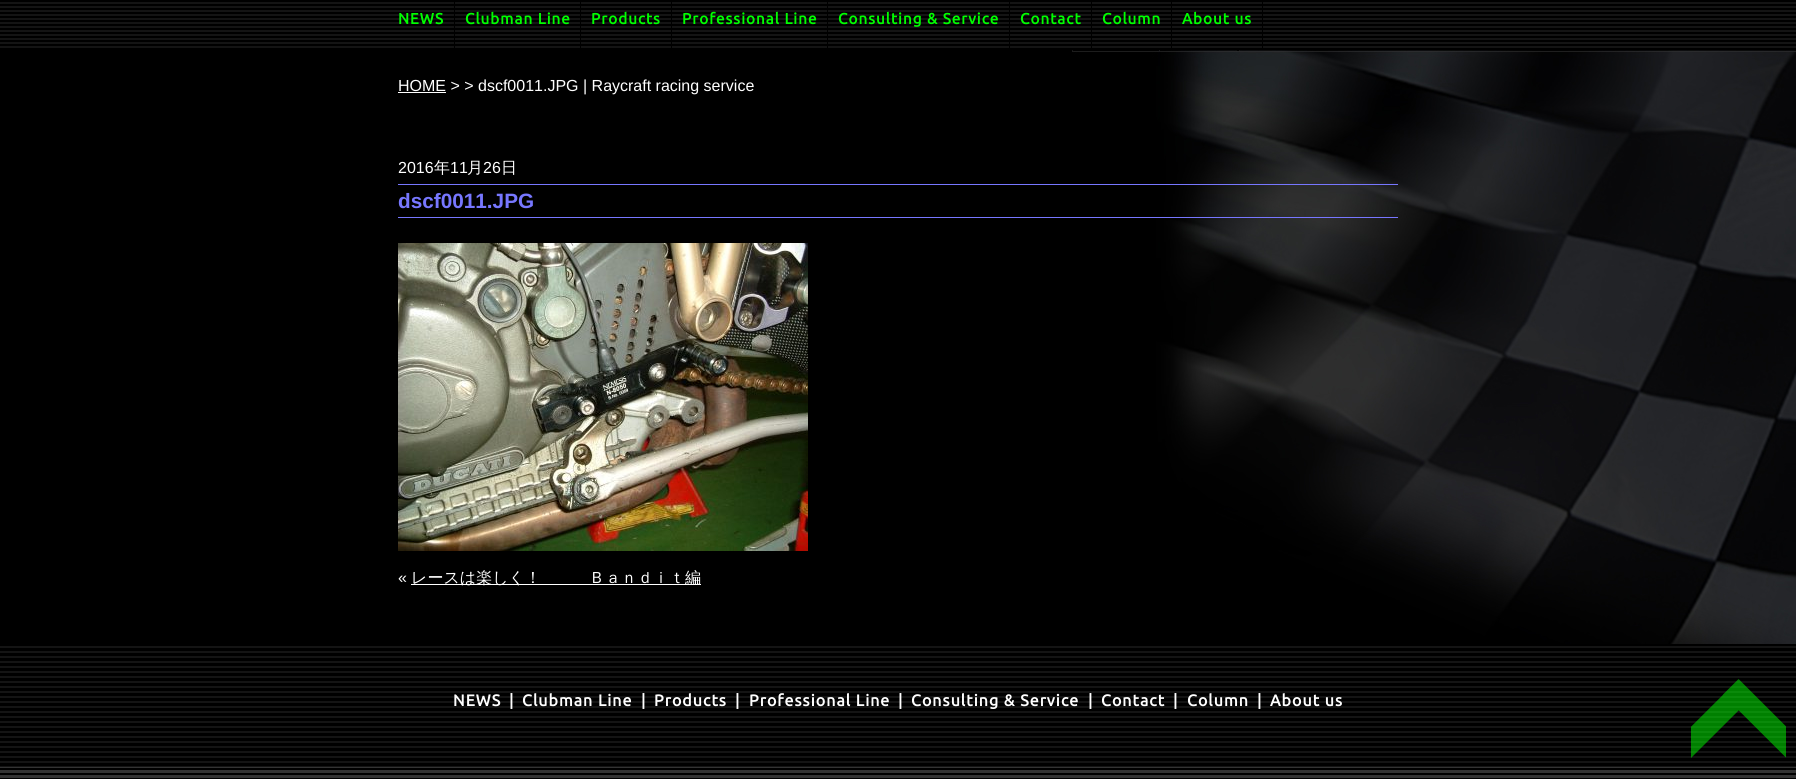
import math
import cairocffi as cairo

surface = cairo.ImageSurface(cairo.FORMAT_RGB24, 1796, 779)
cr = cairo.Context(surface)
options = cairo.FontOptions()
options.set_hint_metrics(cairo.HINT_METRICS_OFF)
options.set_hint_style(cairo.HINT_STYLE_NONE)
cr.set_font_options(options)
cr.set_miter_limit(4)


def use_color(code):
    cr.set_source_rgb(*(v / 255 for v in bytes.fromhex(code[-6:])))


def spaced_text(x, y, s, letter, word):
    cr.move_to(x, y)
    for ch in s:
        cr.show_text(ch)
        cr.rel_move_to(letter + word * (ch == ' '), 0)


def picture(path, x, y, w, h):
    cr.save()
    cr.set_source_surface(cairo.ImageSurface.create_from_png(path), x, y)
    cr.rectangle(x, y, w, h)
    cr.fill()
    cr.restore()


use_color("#000000")
cr.paint()
picture("img1.png", 0, 2, 1796, 46)
use_color("#000000")
cr.rectangle(454, 0, 1, 50)
cr.fill()
cr.select_font_face("Ubuntu", cairo.FONT_SLANT_NORMAL, cairo.FONT_WEIGHT_BOLD)
cr.set_font_size(15.25)
use_color("#00ff00")
spaced_text(398, 24, "NEWS", 1, 0)
use_color("#000000")
cr.rectangle(580, 0, 1, 50)
cr.fill()
use_color("#00ff00")
spaced_text(465, 24, "Clubman Line", 1, 0)
use_color("#000000")
cr.rectangle(671, 0, 1, 50)
cr.fill()
use_color("#00ff00")
spaced_text(591, 24, "Products", 1, 0)
use_color("#000000")
cr.rectangle(827, 0, 1, 50)
cr.fill()
use_color("#00ff00")
spaced_text(682, 24, "Professional Line", 1, 0)
use_color("#000000")
cr.rectangle(1009, 0, 1, 50)
cr.fill()
use_color("#00ff00")
spaced_text(838, 24, "Consulting & Service", 1, 0)
use_color("#000000")
cr.rectangle(1091, 0, 1, 50)
cr.fill()
use_color("#00ff00")
spaced_text(1020, 24, "Contact", 1, 0)
use_color("#000000")
cr.rectangle(1171, 0, 1, 50)
cr.fill()
use_color("#00ff00")
spaced_text(1102, 24, "Column", 1, 0)
use_color("#000000")
cr.rectangle(1262, 0, 1, 50)
cr.fill()
use_color("#00ff00")
spaced_text(1182, 24, "About us", 1, 0)
picture("img2.png", 1072, 50, 724, 594)
use_color("#ffffff")
cr.rectangle(398, 92, 48, 1)
cr.fill()
cr.select_font_face("Liberation Sans")
cr.set_font_size(16)
cr.move_to(398, 91)
cr.show_text("HOME > > dscf0011.JPG | Raycraft racing service")
cr.move_to(398, 173)
cr.show_text("2016")
cr.select_font_face("WenQuanYi Zen Hei Medium")
cr.move_to(434, 173)
cr.show_text("年")
cr.select_font_face("Liberation Sans")
cr.move_to(450, 173)
cr.show_text("11")
cr.select_font_face("WenQuanYi Zen Hei Medium")
cr.move_to(467, 173)
cr.show_text("月")
cr.select_font_face("Liberation Sans")
cr.move_to(483, 173)
cr.show_text("26")
cr.select_font_face("WenQuanYi Zen Hei Medium")
cr.move_to(501, 173)
cr.show_text("日")
use_color("#7777ff")
cr.rectangle(398, 184, 1000, 1)
cr.fill()
cr.rectangle(398, 217, 1000, 1)
cr.fill()
cr.select_font_face("Liberation Sans", cairo.FONT_SLANT_NORMAL, cairo.FONT_WEIGHT_BOLD)
cr.set_font_size(20.75)
cr.move_to(398, 208)
cr.show_text("dscf0011.JPG")
picture("img3.png", 398, 243, 410, 308)
cr.select_font_face("Liberation Sans")
cr.set_font_size(16)
use_color("#ffffff")
cr.move_to(398, 583)
cr.show_text("«")
cr.rectangle(411, 584, 290, 1)
cr.fill()
cr.select_font_face("WenQuanYi Zen Hei Medium")
cr.move_to(411, 583)
cr.show_text("レースは楽しく！　　　Ｂａｎｄｉｔ編")
picture("img4.png", 0, 646, 1796, 121)
cr.select_font_face("Ubuntu", cairo.FONT_SLANT_NORMAL, cairo.FONT_WEIGHT_BOLD)
spaced_text(453, 706, "NEWS", 1, 0)
spaced_text(509, 706, "|", 1, 0)
spaced_text(522, 706, "Clubman Line", 1, 0)
spaced_text(641, 706, "|", 1, 0)
spaced_text(654, 706, "Products", 1, 0)
spaced_text(735, 706, "|", 1, 0)
spaced_text(749, 706, "Professional Line", 1, 0)
spaced_text(898, 706, "|", 1, 0)
spaced_text(911, 706, "Consulting & Service", 1, 0)
spaced_text(1088, 706, "|", 1, 0)
spaced_text(1101, 706, "Contact", 1, 0)
spaced_text(1173, 706, "|", 1, 0)
spaced_text(1187, 706, "Column", 1, 0)
spaced_text(1257, 706, "|", 1, 0)
spaced_text(1270, 706, "About us", 1, 0)
picture("img5.png", 0, 767, 1796, 11)
picture("img6.png", 1691, 679, 95, 79)
surface.write_to_png("result.png")
